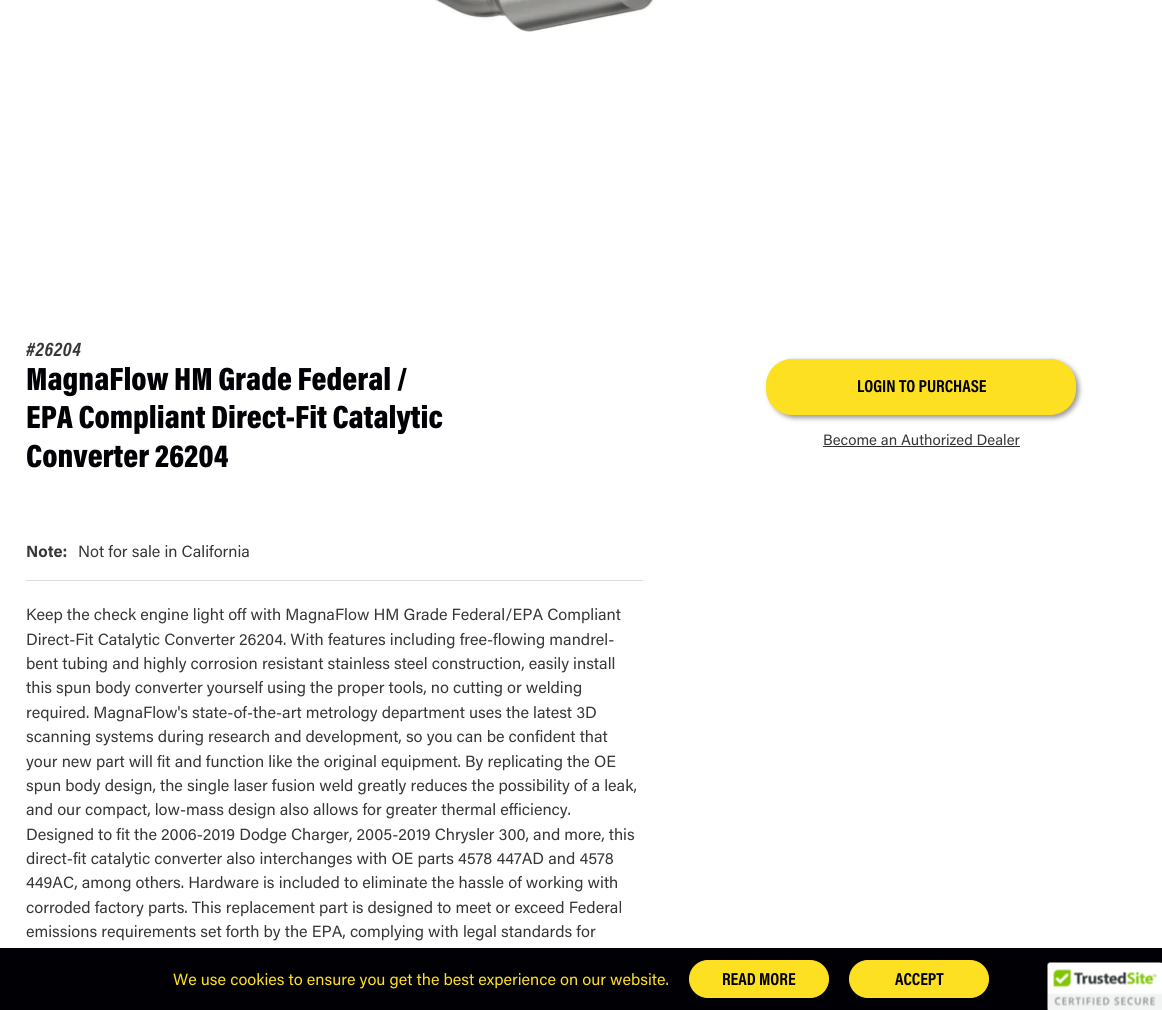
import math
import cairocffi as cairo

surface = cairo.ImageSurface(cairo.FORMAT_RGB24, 1162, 1010)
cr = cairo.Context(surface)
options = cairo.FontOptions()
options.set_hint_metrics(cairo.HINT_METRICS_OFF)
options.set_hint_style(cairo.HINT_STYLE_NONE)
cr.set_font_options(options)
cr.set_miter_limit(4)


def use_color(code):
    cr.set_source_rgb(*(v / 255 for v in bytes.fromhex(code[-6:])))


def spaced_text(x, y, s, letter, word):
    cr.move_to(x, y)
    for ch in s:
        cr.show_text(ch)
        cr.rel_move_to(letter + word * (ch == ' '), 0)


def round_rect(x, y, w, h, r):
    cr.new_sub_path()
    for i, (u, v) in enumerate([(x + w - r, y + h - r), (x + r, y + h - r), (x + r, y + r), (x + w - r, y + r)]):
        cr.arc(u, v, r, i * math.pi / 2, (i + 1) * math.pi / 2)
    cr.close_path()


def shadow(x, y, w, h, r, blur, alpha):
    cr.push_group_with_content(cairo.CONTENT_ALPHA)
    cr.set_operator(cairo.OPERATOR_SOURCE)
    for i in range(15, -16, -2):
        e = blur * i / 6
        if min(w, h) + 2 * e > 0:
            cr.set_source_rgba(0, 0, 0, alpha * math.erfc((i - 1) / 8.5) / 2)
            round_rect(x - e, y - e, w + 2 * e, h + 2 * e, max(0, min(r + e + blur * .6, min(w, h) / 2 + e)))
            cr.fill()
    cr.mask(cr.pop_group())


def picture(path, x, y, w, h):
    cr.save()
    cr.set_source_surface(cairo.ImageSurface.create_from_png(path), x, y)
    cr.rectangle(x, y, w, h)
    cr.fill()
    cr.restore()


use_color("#ffffff")
cr.paint()
picture("img1.png", 435, 0, 219, 32)
cr.select_font_face("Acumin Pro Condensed", cairo.FONT_SLANT_ITALIC, cairo.FONT_WEIGHT_BOLD)
cr.set_font_size(20)
use_color("#373737")
spaced_text(26, 356, "#26204", 0.5, 0)
cr.select_font_face("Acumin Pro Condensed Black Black")
cr.set_font_size(32.5)
use_color("#000005")
cr.move_to(26, 390)
cr.show_text("MagnaFlow HM Grade Federal /")
cr.move_to(26, 428)
cr.show_text("EPA Compliant Direct-Fit Catalytic")
cr.move_to(26, 467)
cr.show_text("Converter 26204")
cr.select_font_face("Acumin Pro", cairo.FONT_SLANT_NORMAL, cairo.FONT_WEIGHT_BOLD)
cr.set_font_size(16.25)
use_color("#373737")
cr.move_to(26, 557)
cr.show_text("Note:")
cr.select_font_face("Acumin Pro")
cr.move_to(78, 557)
cr.show_text("Not for sale in California")
use_color("#dddddd")
cr.rectangle(26, 580, 617, 1)
cr.fill()
use_color("#373737")
cr.move_to(26, 620)
cr.show_text("Keep the check engine light off with MagnaFlow HM Grade Federal/EPA Compliant")
cr.move_to(26, 645)
cr.show_text("Direct-Fit Catalytic Converter 26204. With features including free-flowing mandrel-")
cr.move_to(26, 669)
cr.show_text("bent tubing and highly corrosion resistant stainless steel construction, easily install")
cr.move_to(26, 693)
cr.show_text("this spun body converter yourself using the proper tools, no cutting or welding")
cr.move_to(26, 718)
cr.show_text("required. MagnaFlow's state-of-the-art metrology department uses the latest 3D")
cr.move_to(26, 742)
cr.show_text("scanning systems during research and development, so you can be confident that")
cr.move_to(26, 767)
cr.show_text("your new part will fit and function like the original equipment. By replicating the OE")
cr.move_to(26, 791)
cr.show_text("spun body design, the single laser fusion weld greatly reduces the possibility of a leak,")
cr.move_to(26, 815)
cr.show_text("and our compact, low-mass design also allows for greater thermal efficiency.")
cr.move_to(26, 840)
cr.show_text("Designed to fit the 2006-2019 Dodge Charger, 2005-2019 Chrysler 300, and more, this")
cr.move_to(26, 864)
cr.show_text("direct-fit catalytic converter also interchanges with OE parts 4578 447AD and 4578")
cr.move_to(26, 888)
cr.show_text("449AC, among others. Hardware is included to eliminate the hassle of working with")
cr.move_to(26, 913)
cr.show_text("corroded factory parts. This replacement part is designed to meet or exceed Federal")
cr.move_to(26, 937)
cr.show_text("emissions requirements set forth by the EPA, complying with legal standards for")
use_color("#000000")
shadow(769, 361, 310, 57, 26, 2.5, 0.4)
use_color("#fde022")
round_rect(766.5, 359.5, 309, 55, 25.5)
cr.fill_preserve()
cr.set_line_width(1)
cr.stroke()
cr.select_font_face("Acumin Pro Condensed", cairo.FONT_SLANT_NORMAL, cairo.FONT_WEIGHT_BOLD)
cr.set_font_size(17.5)
use_color("#000005")
cr.move_to(857, 392)
cr.show_text("LOGIN TO PURCHASE")
cr.select_font_face("Acumin Pro")
cr.set_font_size(15)
use_color("#373737")
cr.move_to(823, 445)
cr.show_text("Become an Authorized Dealer")
use_color("#333333")
cr.rectangle(823, 446, 197, 1)
cr.fill()
use_color("#000005")
cr.rectangle(0, 948, 1162, 62)
cr.fill()
cr.set_font_size(16.25)
use_color("#fde022")
cr.move_to(173, 985)
cr.show_text("We use cookies to ensure you get the best experience on our website.")
round_rect(689.5, 960.5, 139, 37, 18.5)
cr.fill_preserve()
cr.stroke()
cr.select_font_face("Acumin Pro Condensed", cairo.FONT_SLANT_NORMAL, cairo.FONT_WEIGHT_BOLD)
cr.set_font_size(17.5)
use_color("#000005")
cr.move_to(722, 985)
cr.show_text("READ MORE")
use_color("#fde022")
round_rect(849.5, 960.5, 139, 37, 18.5)
cr.fill_preserve()
cr.stroke()
use_color("#000005")
cr.move_to(895, 985)
cr.show_text("ACCEPT")
use_color("#ffffff")
cr.new_path()
cr.move_to(1050.5, 963)
cr.line_to(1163, 963)
cr.line_to(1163, 1010)
cr.line_to(1048, 1010)
cr.line_to(1048, 965.5)
cr.curve_to(1048, 964, 1049, 963, 1050.5, 963)
cr.close_path()
cr.fill()
picture("img2.png", 1047, 962, 115, 48)
surface.write_to_png("result.png")
